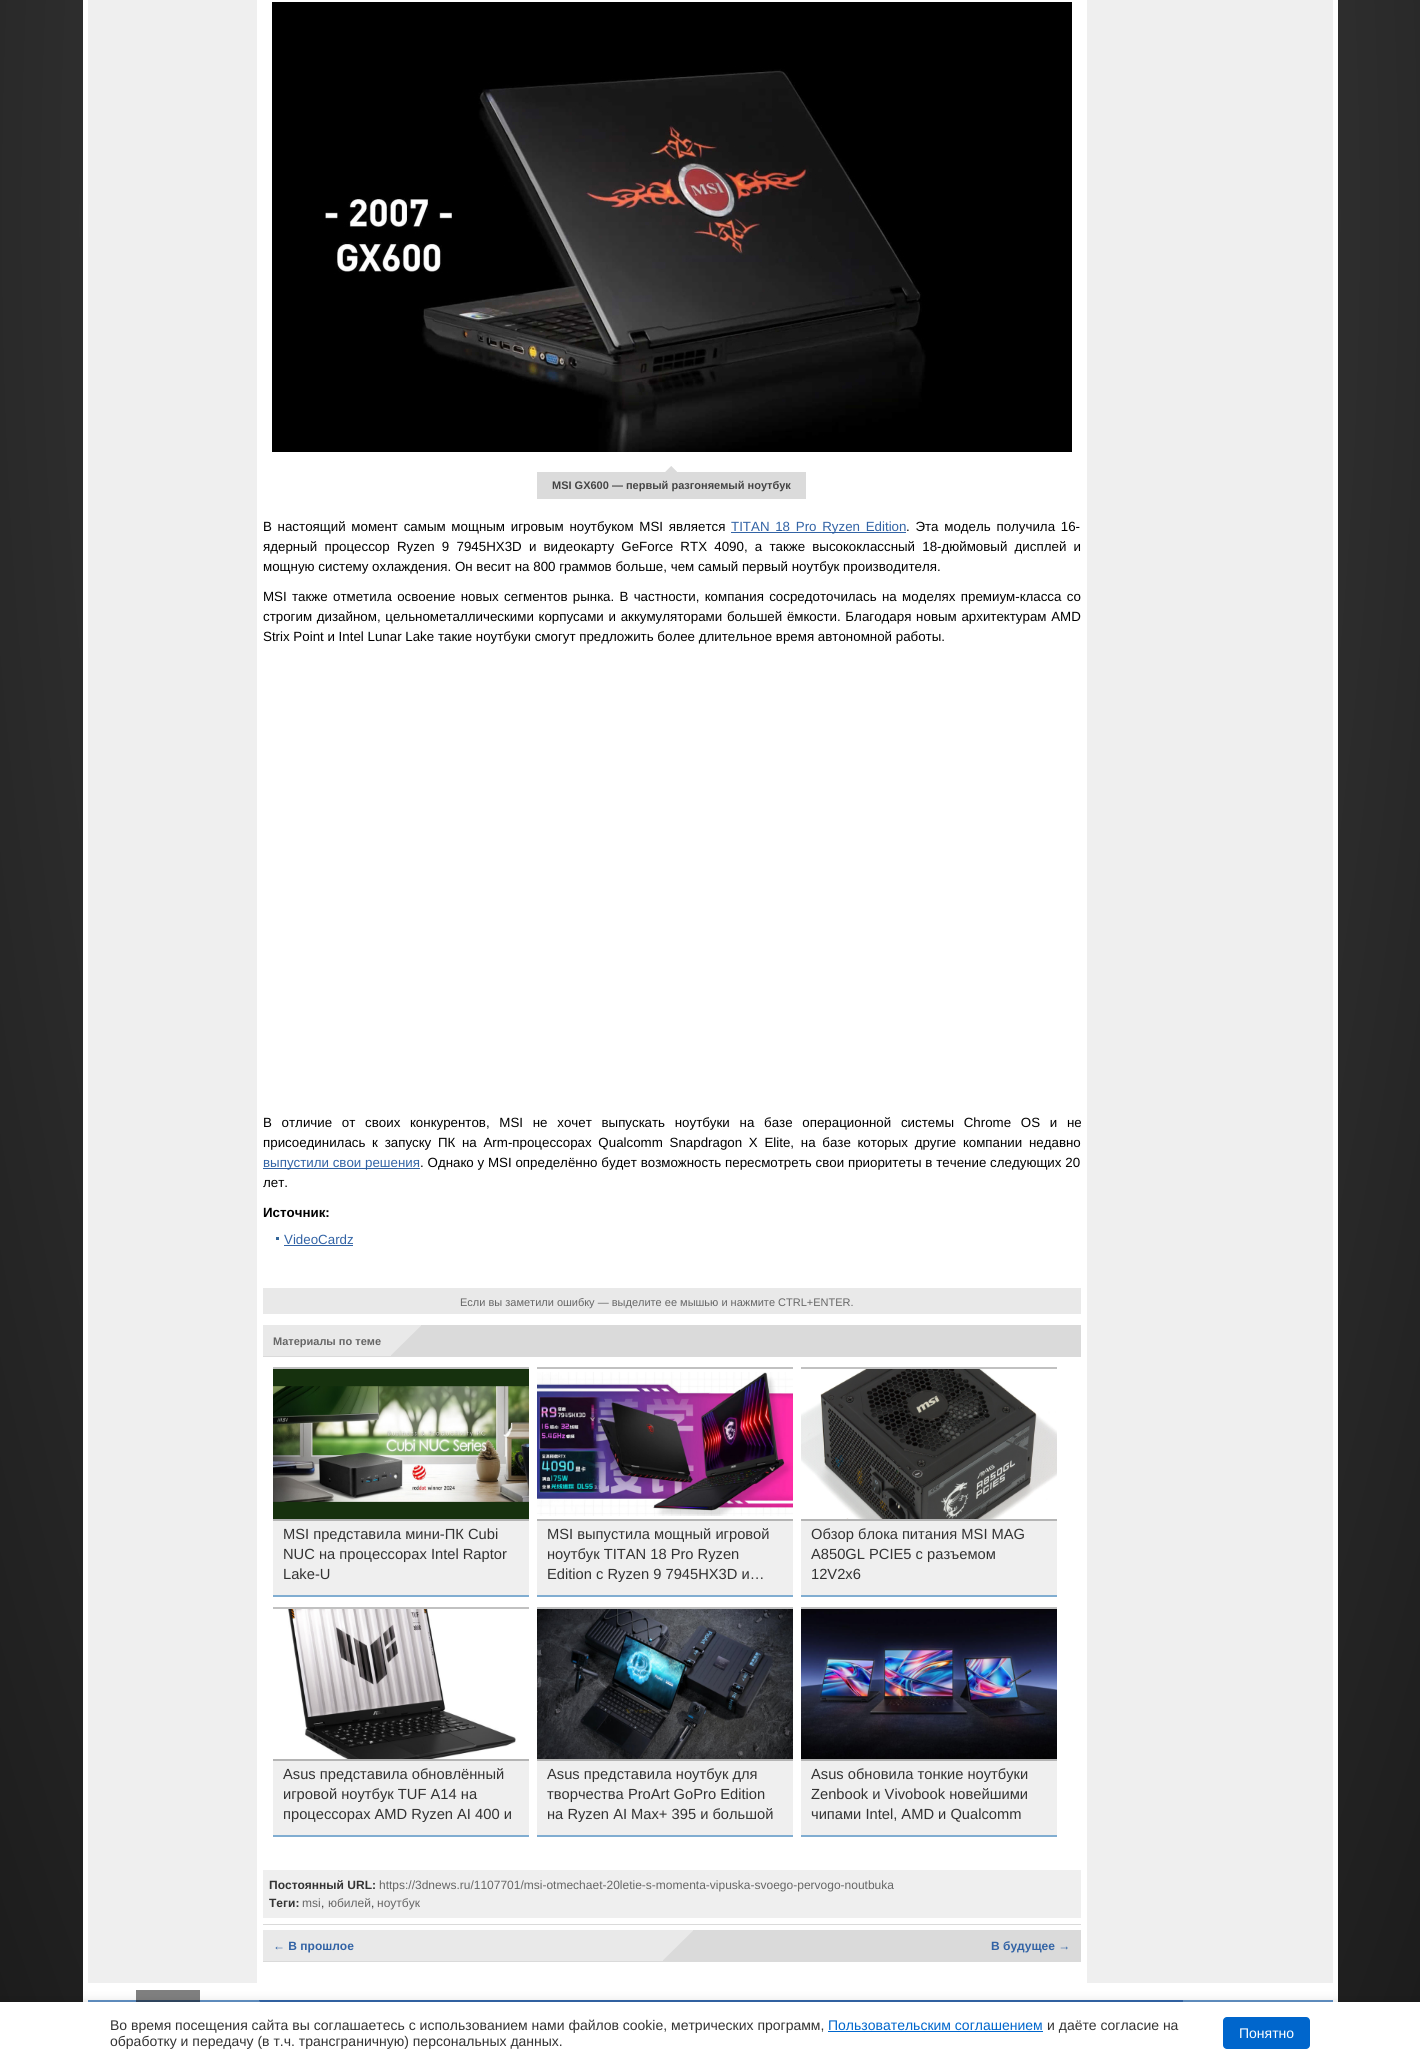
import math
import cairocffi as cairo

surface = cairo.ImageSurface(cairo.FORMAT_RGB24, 1420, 2064)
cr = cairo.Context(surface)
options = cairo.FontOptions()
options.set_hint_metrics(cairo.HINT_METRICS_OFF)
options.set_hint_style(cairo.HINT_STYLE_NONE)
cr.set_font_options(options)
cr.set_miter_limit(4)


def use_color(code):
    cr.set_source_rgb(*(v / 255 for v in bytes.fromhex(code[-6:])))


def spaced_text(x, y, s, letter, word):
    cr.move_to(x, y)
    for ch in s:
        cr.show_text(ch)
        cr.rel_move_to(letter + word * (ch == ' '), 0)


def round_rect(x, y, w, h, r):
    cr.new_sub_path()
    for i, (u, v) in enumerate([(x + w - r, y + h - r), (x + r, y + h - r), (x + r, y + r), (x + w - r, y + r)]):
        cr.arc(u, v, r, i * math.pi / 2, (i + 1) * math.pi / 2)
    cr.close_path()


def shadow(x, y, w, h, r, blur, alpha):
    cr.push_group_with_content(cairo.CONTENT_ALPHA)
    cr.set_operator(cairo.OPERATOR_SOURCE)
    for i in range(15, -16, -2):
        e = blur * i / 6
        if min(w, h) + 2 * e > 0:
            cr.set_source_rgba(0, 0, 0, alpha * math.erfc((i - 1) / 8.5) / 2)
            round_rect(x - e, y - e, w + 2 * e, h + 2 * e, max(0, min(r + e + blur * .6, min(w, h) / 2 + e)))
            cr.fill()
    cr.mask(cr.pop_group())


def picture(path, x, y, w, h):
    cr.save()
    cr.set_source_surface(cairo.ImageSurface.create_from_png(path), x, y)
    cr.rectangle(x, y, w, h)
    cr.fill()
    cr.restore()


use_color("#ffffff")
cr.paint()
gradient = cairo.RadialGradient(0, 0, 0, 0, 0, 1)
gradient.set_matrix(cairo.Matrix(1 / 1004, 0, 0, 1 / 2708, -1 * 710 / 1004, -1 * 227 / 2708))
gradient.add_color_stop_rgba(0, 0.306, 0.306, 0.306, 1)
gradient.add_color_stop_rgba(1, 0.102, 0.102, 0.102, 1)
cr.set_source(gradient)
cr.rectangle(0, 0, 1420, 2002)
cr.fill()
use_color("#ffffff")
cr.rectangle(83, 0, 1255, 2002)
cr.fill()
use_color("#808080")
cr.rectangle(136, 1990, 64, 10)
cr.fill()
use_color("#efefef")
cr.rectangle(88, 0, 169, 1983)
cr.fill()
use_color("#dadada")
cr.rectangle(263, 1924, 818, 1)
cr.fill()
picture("img1.png", 272, 2, 800, 450)
picture("img2.png", 665, 466, 12, 6)
use_color("#dbdbdb")
cr.rectangle(537, 472, 269, 27)
cr.fill()
cr.select_font_face("Liberation Sans", cairo.FONT_SLANT_NORMAL, cairo.FONT_WEIGHT_BOLD)
cr.set_font_size(11)
use_color("#444444")
cr.move_to(552, 489)
cr.show_text("MSI GX600 — первый разгоняемый ноутбук")
cr.select_font_face("Liberation Sans")
cr.set_font_size(13.33)
use_color("#000000")
spaced_text(263, 531, "В настоящий момент самым мощным игровым ноутбуком MSI является", 0, 2)
use_color("#3263a5")
cr.rectangle(731, 532, 175, 1)
cr.fill()
spaced_text(731, 531, "TITAN 18 Pro Ryzen Edition", 0, 2)
use_color("#000000")
spaced_text(906, 531, ". Эта модель получила 16-", 0, 2)
spaced_text(263, 551, "ядерный процессор Ryzen 9 7945HX3D и видеокарту GeForce RTX 4090, а также высококлассный 18-дюймовый дисплей и", 0, 3.5)
cr.move_to(263, 571)
cr.show_text("мощную систему охлаждения. Он весит на 800 граммов больше, чем самый первый ноутбук производителя.")
spaced_text(263, 601, "MSI также отметила освоение новых сегментов рынка. В частности, компания сосредоточилась на моделях премиум-класса со", 0, 1.6)
spaced_text(263, 621, "строгим дизайном, цельнометаллическими корпусами и аккумуляторами большей ёмкости. Благодаря новым архитектурам AMD", 0, 1)
cr.move_to(263, 641)
cr.show_text("Strix Point и Intel Lunar Lake такие ноутбуки смогут предложить более длительное время автономной работы.")
spaced_text(263, 1127, "В отличие от своих конкурентов, MSI не хочет выпускать ноутбуки на базе операционной системы Chrome OS и не", 0, 6)
spaced_text(263, 1147, "присоединилась к запуску ПК на Arm-процессорах Qualcomm Snapdragon X Elite, на базе которых другие компании недавно", 0, 3)
use_color("#3263a5")
cr.rectangle(263, 1168, 157, 1)
cr.fill()
cr.move_to(263, 1167)
cr.show_text("выпустили свои решения")
use_color("#000000")
spaced_text(420, 1167, ". Однако у MSI определённо будет возможность пересмотреть свои приоритеты в течение следующих 20", 0, 0.1)
cr.move_to(263, 1187)
cr.show_text("лет.")
cr.select_font_face("Liberation Sans", cairo.FONT_SLANT_NORMAL, cairo.FONT_WEIGHT_BOLD)
cr.move_to(263, 1217)
cr.show_text("Источник:")
use_color("#336699")
cr.rectangle(276, 1237, 3, 3)
cr.fill()
cr.select_font_face("Liberation Sans")
use_color("#3263a5")
cr.move_to(284, 1244)
cr.show_text("VideoCardz")
cr.rectangle(284, 1245, 69, 1)
cr.fill()
use_color("#e9e9e9")
cr.rectangle(263, 1288, 818, 26)
cr.fill()
cr.set_font_size(11)
use_color("#666666")
cr.move_to(460, 1306)
cr.show_text("Если вы заметили ошибку — выделите ее мышью и нажмите CTRL+ENTER.")
use_color("#dadada")
cr.rectangle(263, 1325, 818, 32)
cr.fill()
use_color("#e9e9e9")
cr.rectangle(263, 1325, 158, 31)
cr.fill()
picture("img3.png", 391, 1326, 30, 30)
cr.select_font_face("Liberation Sans", cairo.FONT_SLANT_NORMAL, cairo.FONT_WEIGHT_BOLD)
use_color("#666666")
cr.move_to(273, 1345)
cr.show_text("Материалы по теме")
use_color("#efefef")
cr.rectangle(273, 1521, 256, 74)
cr.fill()
use_color("#c1c1c1")
cr.rectangle(273, 1367, 256, 2)
cr.fill()
use_color("#80add1")
cr.rectangle(273, 1595, 256, 2)
cr.fill()
use_color("#b4b4b4")
cr.rectangle(273, 1519, 256, 2)
cr.fill()
picture("img4.png", 273, 1369, 256, 150)
cr.select_font_face("Liberation Sans")
cr.set_font_size(14.7)
use_color("#333333")
cr.move_to(283, 1539)
cr.show_text("MSI представила мини-ПК Cubi")
cr.move_to(283, 1559)
cr.show_text("NUC на процессорах Intel Raptor")
cr.move_to(283, 1579)
cr.show_text("Lake-U")
use_color("#efefef")
cr.rectangle(537, 1521, 256, 74)
cr.fill()
use_color("#c1c1c1")
cr.rectangle(537, 1367, 256, 2)
cr.fill()
use_color("#80add1")
cr.rectangle(537, 1595, 256, 2)
cr.fill()
use_color("#b4b4b4")
cr.rectangle(537, 1519, 256, 2)
cr.fill()
picture("img5.png", 537, 1369, 256, 150)
use_color("#333333")
cr.move_to(547, 1539)
cr.show_text("MSI выпустила мощный игровой")
cr.move_to(547, 1559)
cr.show_text("ноутбук TITAN 18 Pro Ryzen")
cr.move_to(547, 1579)
cr.show_text("Edition с Ryzen 9 7945HX3D и…")
use_color("#efefef")
cr.rectangle(801, 1521, 256, 74)
cr.fill()
use_color("#c1c1c1")
cr.rectangle(801, 1367, 256, 2)
cr.fill()
use_color("#80add1")
cr.rectangle(801, 1595, 256, 2)
cr.fill()
use_color("#b4b4b4")
cr.rectangle(801, 1519, 256, 2)
cr.fill()
picture("img6.png", 801, 1369, 256, 150)
use_color("#333333")
cr.move_to(811, 1539)
cr.show_text("Обзор блока питания MSI MAG")
cr.move_to(811, 1559)
cr.show_text("A850GL PCIE5 с разъемом")
cr.move_to(811, 1579)
cr.show_text("12V2x6")
use_color("#efefef")
cr.rectangle(273, 1761, 256, 74)
cr.fill()
use_color("#c1c1c1")
cr.rectangle(273, 1607, 256, 2)
cr.fill()
use_color("#80add1")
cr.rectangle(273, 1835, 256, 2)
cr.fill()
use_color("#b4b4b4")
cr.rectangle(273, 1759, 256, 2)
cr.fill()
picture("img7.png", 273, 1609, 256, 150)
use_color("#333333")
cr.move_to(283, 1779)
cr.show_text("Asus представила обновлённый")
cr.move_to(283, 1799)
cr.show_text("игровой ноутбук TUF A14 на")
cr.move_to(283, 1819)
cr.show_text("процессорах AMD Ryzen AI 400 и")
use_color("#efefef")
cr.rectangle(537, 1761, 256, 74)
cr.fill()
use_color("#c1c1c1")
cr.rectangle(537, 1607, 256, 2)
cr.fill()
use_color("#80add1")
cr.rectangle(537, 1835, 256, 2)
cr.fill()
use_color("#b4b4b4")
cr.rectangle(537, 1759, 256, 2)
cr.fill()
picture("img8.png", 537, 1609, 256, 150)
use_color("#333333")
cr.move_to(547, 1779)
cr.show_text("Asus представила ноутбук для")
cr.move_to(547, 1799)
cr.show_text("творчества ProArt GoPro Edition")
cr.move_to(547, 1819)
cr.show_text("на Ryzen AI Max+ 395 и большой")
use_color("#efefef")
cr.rectangle(801, 1761, 256, 74)
cr.fill()
use_color("#c1c1c1")
cr.rectangle(801, 1607, 256, 2)
cr.fill()
use_color("#80add1")
cr.rectangle(801, 1835, 256, 2)
cr.fill()
use_color("#b4b4b4")
cr.rectangle(801, 1759, 256, 2)
cr.fill()
picture("img9.png", 801, 1609, 256, 150)
use_color("#333333")
cr.move_to(811, 1779)
cr.show_text("Asus обновила тонкие ноутбуки")
cr.move_to(811, 1799)
cr.show_text("Zenbook и Vivobook новейшими")
cr.move_to(811, 1819)
cr.show_text("чипами Intel, AMD и Qualcomm")
use_color("#efefef")
cr.rectangle(263, 1870, 818, 48)
cr.fill()
cr.select_font_face("Liberation Sans", cairo.FONT_SLANT_NORMAL, cairo.FONT_WEIGHT_BOLD)
cr.set_font_size(12)
use_color("#333333")
cr.move_to(269, 1889)
cr.show_text("Постоянный URL:")
cr.select_font_face("Liberation Sans")
use_color("#666666")
cr.move_to(379, 1889)
cr.show_text("https://3dnews.ru/1107701/msi-otmechaet-20letie-s-momenta-vipuska-svoego-pervogo-noutbuka")
cr.select_font_face("Liberation Sans", cairo.FONT_SLANT_NORMAL, cairo.FONT_WEIGHT_BOLD)
use_color("#333333")
cr.move_to(269, 1907)
cr.show_text("Теги:")
cr.select_font_face("Liberation Sans")
use_color("#666666")
cr.move_to(302, 1907)
cr.show_text("msi")
use_color("#333333")
cr.move_to(321, 1907)
cr.show_text(",")
use_color("#666666")
cr.move_to(328, 1907)
cr.show_text("юбилей")
use_color("#333333")
cr.move_to(371, 1907)
cr.show_text(",")
use_color("#666666")
cr.move_to(377, 1907)
cr.show_text("ноутбук")
use_color("#dadada")
cr.rectangle(263, 1930, 818, 32)
cr.fill()
use_color("#e9e9e9")
cr.rectangle(263, 1930, 430, 31)
cr.fill()
picture("img3.png", 663, 1931, 30, 30)
cr.select_font_face("Liberation Sans", cairo.FONT_SLANT_NORMAL, cairo.FONT_WEIGHT_BOLD)
use_color("#3263a5")
cr.move_to(273, 1950)
cr.show_text("← В прошлое")
cr.move_to(991, 1950)
cr.show_text("В будущее →")
use_color("#efefef")
cr.rectangle(1087, 0, 246, 1983)
cr.fill()
use_color("#3366aa")
cr.rectangle(285, 2000, 898, 2)
cr.fill()
use_color("#6292c6")
cr.rectangle(88, 2000, 171, 2)
cr.fill()
use_color("#314963")
cr.rectangle(136, 2000, 64, 2)
cr.fill()
picture("img10.png", 259, 2000, 26, 2)
use_color("#6292c6")
cr.rectangle(1183, 2000, 150, 2)
cr.fill()
use_color("#000000")
shadow(0, 2000, 1420, 62, 0, 5, 0.1)
use_color("#ffffff")
cr.rectangle(0, 2002, 1420, 62)
cr.fill()
cr.select_font_face("Liberation Sans")
cr.set_font_size(14)
use_color("#333333")
cr.move_to(110, 2030)
cr.show_text("Во время посещения сайта вы соглашаетесь с использованием нами файлов cookie, метрических программ,")
use_color("#0066cc")
cr.move_to(828, 2030)
cr.show_text("Пользовательским соглашением")
cr.rectangle(828, 2031, 215, 1)
cr.fill()
use_color("#333333")
cr.move_to(1047, 2030)
cr.show_text("и даёте согласие на")
cr.move_to(110, 2046)
cr.show_text("обработку и передачу (в т.ч. трансграничную) персональных данных.")
use_color("#0066cc")
round_rect(1223, 2017, 87, 32, 4)
cr.fill()
use_color("#ffffff")
cr.move_to(1239, 2038)
cr.show_text("Понятно")
surface.write_to_png("result.png")
